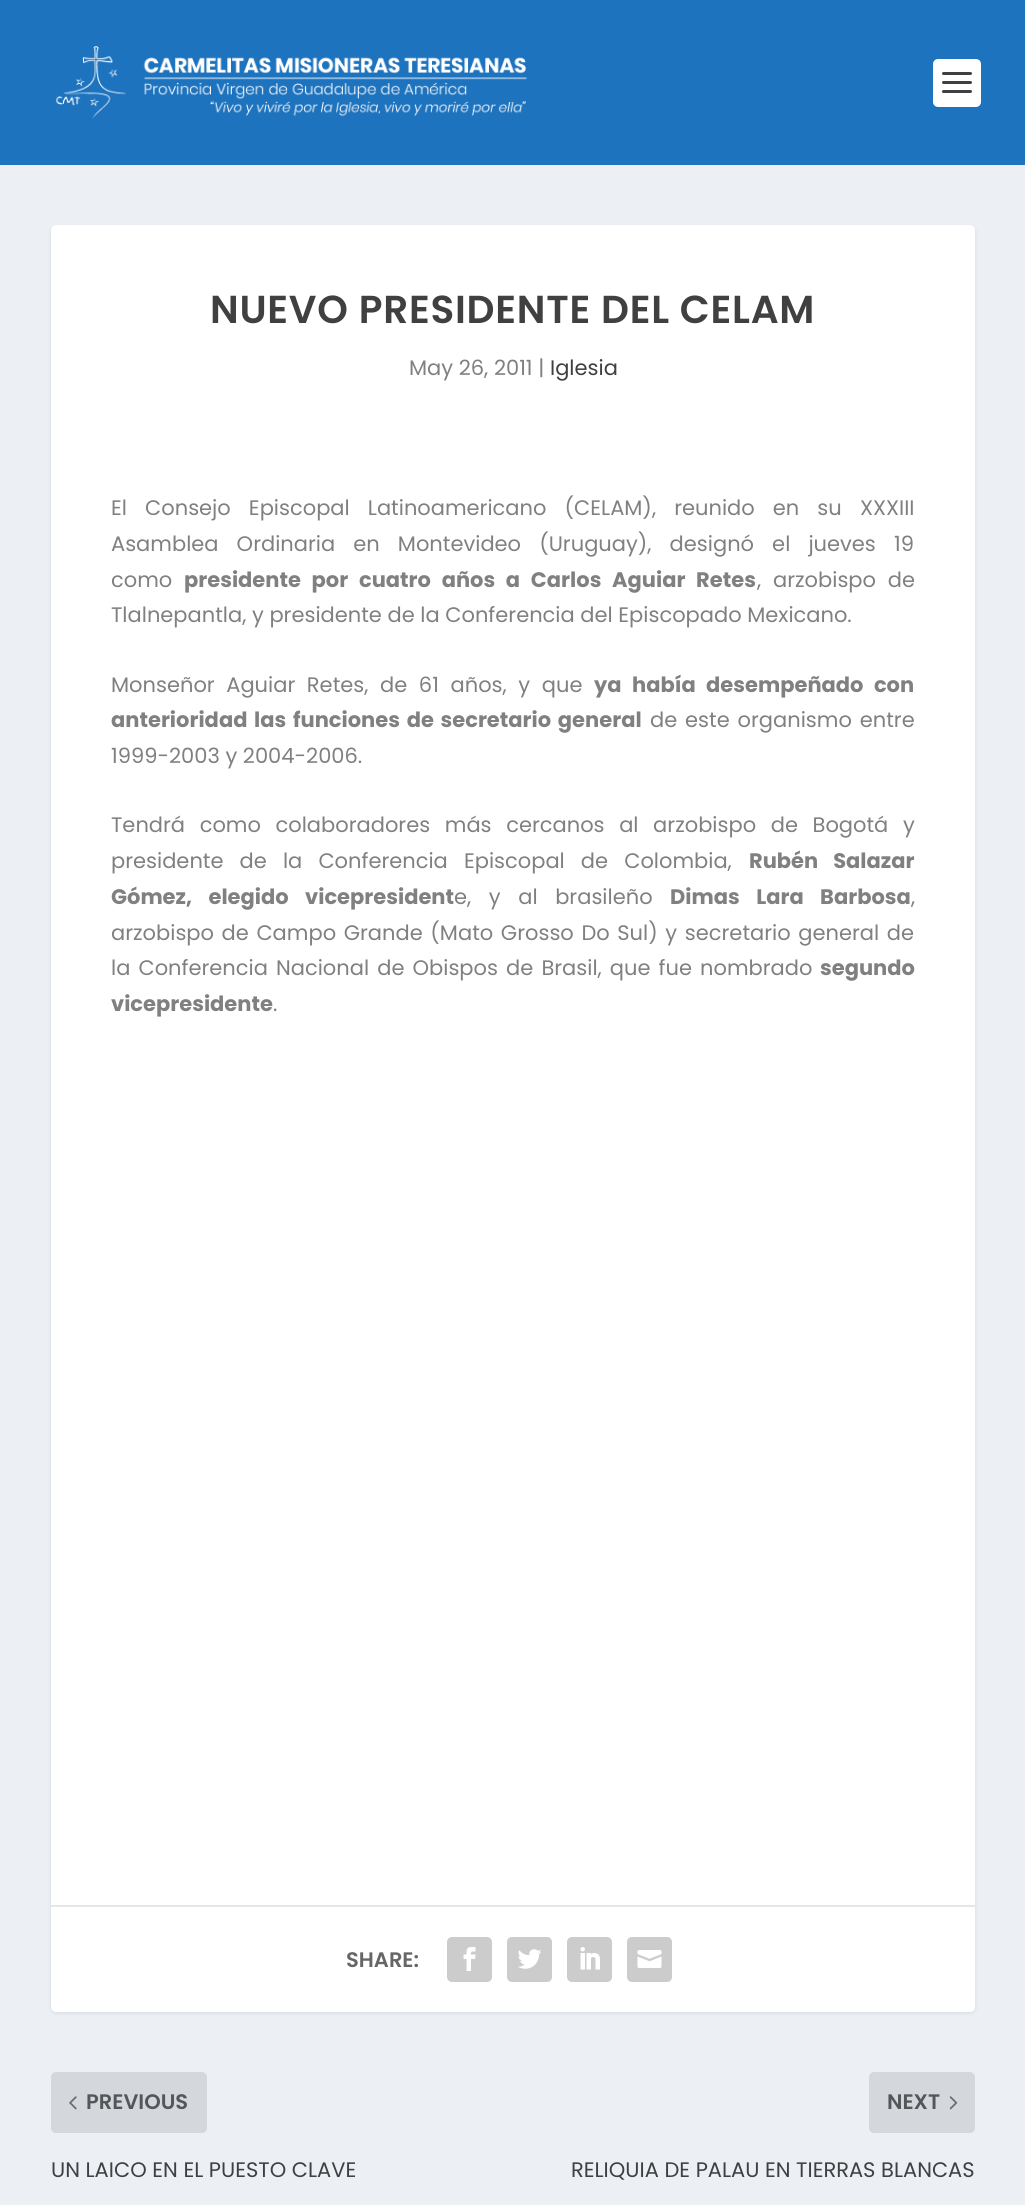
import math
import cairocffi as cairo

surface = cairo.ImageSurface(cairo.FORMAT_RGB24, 1025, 2205)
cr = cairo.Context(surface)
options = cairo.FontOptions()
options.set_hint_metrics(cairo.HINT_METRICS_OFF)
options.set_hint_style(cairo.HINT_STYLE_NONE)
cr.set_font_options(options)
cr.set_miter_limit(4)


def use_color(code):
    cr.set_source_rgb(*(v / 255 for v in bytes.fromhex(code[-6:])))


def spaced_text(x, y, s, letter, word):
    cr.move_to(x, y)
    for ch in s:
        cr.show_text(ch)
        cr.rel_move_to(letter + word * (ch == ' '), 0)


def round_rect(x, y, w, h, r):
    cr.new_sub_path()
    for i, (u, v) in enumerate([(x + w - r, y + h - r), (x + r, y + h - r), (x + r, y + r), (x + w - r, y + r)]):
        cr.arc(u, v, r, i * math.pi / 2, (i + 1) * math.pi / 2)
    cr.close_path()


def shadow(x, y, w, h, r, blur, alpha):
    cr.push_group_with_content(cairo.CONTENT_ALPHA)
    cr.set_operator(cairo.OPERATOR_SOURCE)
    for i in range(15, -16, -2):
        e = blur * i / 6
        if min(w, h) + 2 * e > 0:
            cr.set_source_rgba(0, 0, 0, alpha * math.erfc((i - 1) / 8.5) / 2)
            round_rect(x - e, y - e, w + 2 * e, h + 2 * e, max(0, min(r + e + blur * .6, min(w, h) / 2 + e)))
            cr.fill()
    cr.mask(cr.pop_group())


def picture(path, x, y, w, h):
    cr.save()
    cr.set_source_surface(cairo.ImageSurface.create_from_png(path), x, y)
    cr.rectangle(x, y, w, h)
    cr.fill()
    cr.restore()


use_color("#ecf0f5")
cr.paint()
use_color("#1e73be")
cr.rectangle(0, 0, 1025, 165)
cr.fill()
picture("img1.png", 56, 46, 471, 73)
use_color("#ffffff")
round_rect(933, 59, 48, 48, 5)
cr.fill()
use_color("#404040")
round_rect(942, 72, 30, 3, 1.5)
cr.fill()
round_rect(942, 81, 30, 3, 1.5)
cr.fill()
round_rect(942, 90, 30, 3, 1.5)
cr.fill()
use_color("#000000")
shadow(51, 227, 924, 1786, 5, 2, 0.1)
use_color("#ffffff")
round_rect(51, 225, 924, 1787, 5)
cr.fill()
cr.select_font_face("Poppins SemiBold")
cr.set_font_size(39)
use_color("#404040")
spaced_text(210, 323, "NUEVO PRESIDENTE DEL CELAM", 0.75, 0)
cr.select_font_face("Poppins")
cr.set_font_size(21)
use_color("#808080")
cr.move_to(409, 375)
cr.show_text("May 26, 2011 |")
use_color("#404040")
cr.move_to(550, 375)
cr.show_text("Iglesia")
use_color("#808080")
spaced_text(111, 515, "El Consejo Episcopal Latinoamericano (CELAM), reunido en su XXXIII", 0, 12.5)
spaced_text(111, 551, "Asamblea Ordinaria en Montevideo (Uruguay), designó el jueves 19", 0, 12.5)
cr.move_to(111, 587)
cr.show_text("como")
cr.select_font_face("Poppins", cairo.FONT_SLANT_NORMAL, cairo.FONT_WEIGHT_BOLD)
spaced_text(184, 587, "presidente por cuatro años a Carlos Aguiar Retes", 0, 6.25)
cr.select_font_face("Poppins")
spaced_text(757, 587, ", arzobispo de", 0, 6.25)
cr.move_to(111, 622)
cr.show_text("Tlalnepantla, y presidente de la Conferencia del Episcopado Mexicano.")
spaced_text(111, 692, "Monseñor Aguiar Retes, de 61 años, y que", 0, 6)
cr.select_font_face("Poppins", cairo.FONT_SLANT_NORMAL, cairo.FONT_WEIGHT_BOLD)
spaced_text(594, 692, "ya había desempeñado con", 0, 6)
spaced_text(111, 727, "anterioridad las funciones de secretario general", 0, 2.25)
cr.select_font_face("Poppins")
spaced_text(650, 727, "de este organismo entre", 0, 2.25)
cr.move_to(111, 763)
cr.show_text("1999-2003 y 2004-2006.")
spaced_text(111, 832, "Tendrá como colaboradores más cercanos al arzobispo de Bogotá y", 0, 9)
spaced_text(111, 868, "presidente de la Conferencia Episcopal de Colombia,", 0, 10.5)
cr.select_font_face("Poppins", cairo.FONT_SLANT_NORMAL, cairo.FONT_WEIGHT_BOLD)
spaced_text(749, 868, "Rubén Salazar", 0, 10.5)
spaced_text(111, 904, "Gómez, elegido vicepresident", 0, 12)
cr.select_font_face("Poppins")
spaced_text(454, 904, "e, y al brasileño", 0, 12)
cr.select_font_face("Poppins", cairo.FONT_SLANT_NORMAL, cairo.FONT_WEIGHT_BOLD)
spaced_text(670, 904, "Dimas Lara Barbosa", 0, 12)
cr.select_font_face("Poppins")
cr.move_to(911, 904)
cr.show_text(",")
spaced_text(111, 940, "arzobispo de Campo Grande (Mato Grosso Do Sul) y secretario general de", 0, 2)
spaced_text(111, 975, "la Conferencia Nacional de Obispos de Brasil, que fue nombrado", 0, 2.5)
cr.select_font_face("Poppins", cairo.FONT_SLANT_NORMAL, cairo.FONT_WEIGHT_BOLD)
cr.move_to(820, 975)
cr.show_text("segundo")
cr.move_to(111, 1011)
cr.show_text("vicepresidente")
cr.select_font_face("Poppins")
cr.move_to(273, 1011)
cr.show_text(".")
use_color("#e6e6e6")
cr.rectangle(51, 1905, 924, 2)
cr.fill()
cr.select_font_face("Poppins SemiBold")
use_color("#666666")
cr.move_to(346, 1967)
cr.show_text("SHARE:")
use_color("#cccccc")
round_rect(447, 1937, 45, 45, 5)
cr.fill()
picture("img2.png", 463, 1947, 13, 24)
round_rect(507, 1937, 45, 45, 5)
cr.fill()
picture("img3.png", 518, 1949, 24, 20)
round_rect(567, 1937, 45, 45, 5)
cr.fill()
picture("img4.png", 580, 1947, 20, 23)
round_rect(627, 1937, 45, 45, 5)
cr.fill()
picture("img5.png", 637, 1950, 25, 18)
use_color("#d4d8dd")
round_rect(51, 2072, 156, 61, 5)
cr.fill()
picture("img6.png", 69, 2096, 8, 14)
use_color("#555658")
cr.move_to(86, 2109)
cr.show_text("PREVIOUS")
cr.select_font_face("Poppins")
use_color("#404040")
cr.move_to(51, 2177)
cr.show_text("UN LAICO EN EL PUESTO CLAVE")
use_color("#d4d8dd")
round_rect(869, 2072, 106, 61, 5)
cr.fill()
cr.select_font_face("Poppins SemiBold")
use_color("#555658")
cr.move_to(887, 2109)
cr.show_text("NEXT")
picture("img7.png", 949, 2096, 9, 14)
cr.select_font_face("Poppins")
use_color("#404040")
cr.move_to(571, 2177)
cr.show_text("RELIQUIA DE PALAU EN TIERRAS BLANCAS")
surface.write_to_png("result.png")
